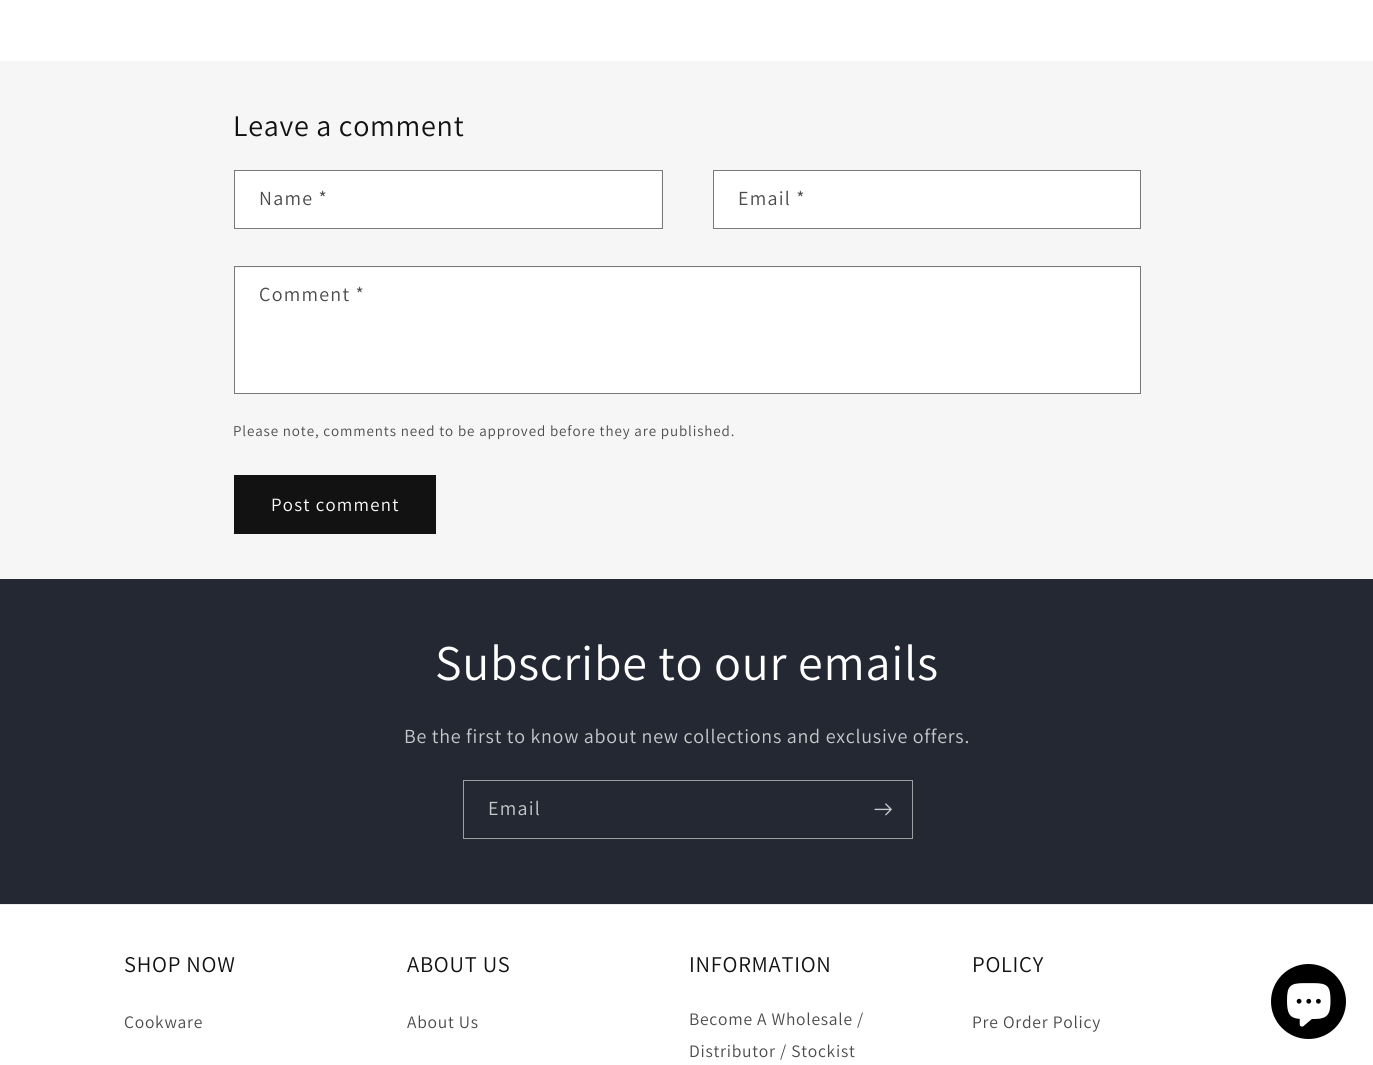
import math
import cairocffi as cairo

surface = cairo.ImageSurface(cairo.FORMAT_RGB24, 1373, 1065)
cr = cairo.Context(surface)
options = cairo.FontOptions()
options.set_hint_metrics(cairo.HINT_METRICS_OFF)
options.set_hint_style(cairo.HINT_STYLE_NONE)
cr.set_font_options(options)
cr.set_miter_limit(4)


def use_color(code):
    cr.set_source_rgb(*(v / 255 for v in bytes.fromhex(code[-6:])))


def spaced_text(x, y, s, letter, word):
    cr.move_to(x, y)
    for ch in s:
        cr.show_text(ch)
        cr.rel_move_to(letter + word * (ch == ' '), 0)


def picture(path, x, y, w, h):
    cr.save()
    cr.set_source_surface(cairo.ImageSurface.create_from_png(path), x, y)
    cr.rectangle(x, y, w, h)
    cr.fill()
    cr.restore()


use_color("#ffffff")
cr.paint()
use_color("#f6f6f6")
cr.rectangle(0, 61, 1373, 518)
cr.fill()
cr.select_font_face("Assistant")
cr.set_font_size(30)
use_color("#121212")
spaced_text(233, 136, "Leave a comment", 0.75, 0)
use_color("#ffffff")
cr.rectangle(235, 171, 426, 57)
cr.fill()
cr.rectangle(234.5, 170.5, 428, 58)
use_color("#797979")
cr.set_line_width(1)
cr.stroke()
cr.set_font_size(20)
use_color("#4b4b4b")
spaced_text(259, 205, "Name *", 1.25, 0)
use_color("#ffffff")
cr.rectangle(714, 171, 426, 57)
cr.fill()
cr.rectangle(713.5, 170.5, 427, 58)
use_color("#797979")
cr.stroke()
use_color("#4b4b4b")
spaced_text(738, 205, "Email *", 1.25, 0)
use_color("#ffffff")
cr.rectangle(235, 268, 905, 125)
cr.fill()
cr.rectangle(234.5, 266.5, 906, 127)
use_color("#797979")
cr.stroke()
use_color("#4b4b4b")
spaced_text(259, 301, "Comment *", 1.25, 0)
cr.set_font_size(15)
spaced_text(233, 436, "Please note, comments need to be approved before they are published.", 0.88, 0)
use_color("#121212")
cr.rectangle(234, 475, 202, 59)
cr.fill()
cr.set_font_size(18.75)
use_color("#ffffff")
spaced_text(271, 511, "Post comment", 1.25, 0)
use_color("#242833")
cr.rectangle(0, 579, 1373, 325)
cr.fill()
cr.set_font_size(50)
use_color("#ffffff")
spaced_text(435, 680, "Subscribe to our emails", 0.75, 0)
cr.set_font_size(20)
use_color("#c8c9cc")
spaced_text(404, 743, "Be the first to know about new collections and exclusive offers.", 0.75, 0)
cr.rectangle(463.5, 780.5, 449, 58)
use_color("#9c9ea3")
cr.stroke()
use_color("#c8c9cc")
spaced_text(488, 815, "Email", 1.25, 0)
picture("img1.png", 874, 803, 18, 13)
use_color("#ececec")
cr.rectangle(0, 904, 1373, 1)
cr.fill()
cr.set_font_size(22.5)
use_color("#121212")
spaced_text(124, 972, "SHOP NOW", 0.75, 0)
cr.set_font_size(17.5)
use_color("#4b4b4b")
spaced_text(124, 1028, "Cookware", 0.75, 0)
cr.set_font_size(22.5)
use_color("#121212")
spaced_text(407, 972, "ABOUT US", 0.75, 0)
cr.set_font_size(17.5)
use_color("#4b4b4b")
spaced_text(407, 1028, "About Us", 0.75, 0)
cr.set_font_size(22.5)
use_color("#121212")
spaced_text(689, 972, "INFORMATION", 0.75, 0)
cr.set_font_size(17.5)
use_color("#4b4b4b")
spaced_text(689, 1025, "Become A Wholesale /", 0.75, 0)
spaced_text(689, 1057, "Distributor / Stockist", 0.75, 0)
cr.set_font_size(22.5)
use_color("#121212")
spaced_text(972, 972, "POLICY", 0.75, 0)
cr.set_font_size(17.5)
use_color("#4b4b4b")
spaced_text(972, 1028, "Pre Order Policy", 0.75, 0)
use_color("#000000")
cr.new_path()
cr.arc(1308.5, 1001.5, 37.5, 0, 2 * math.pi)
cr.fill()
picture("img2.png", 1287, 983, 44, 44)
surface.write_to_png("result.png")
